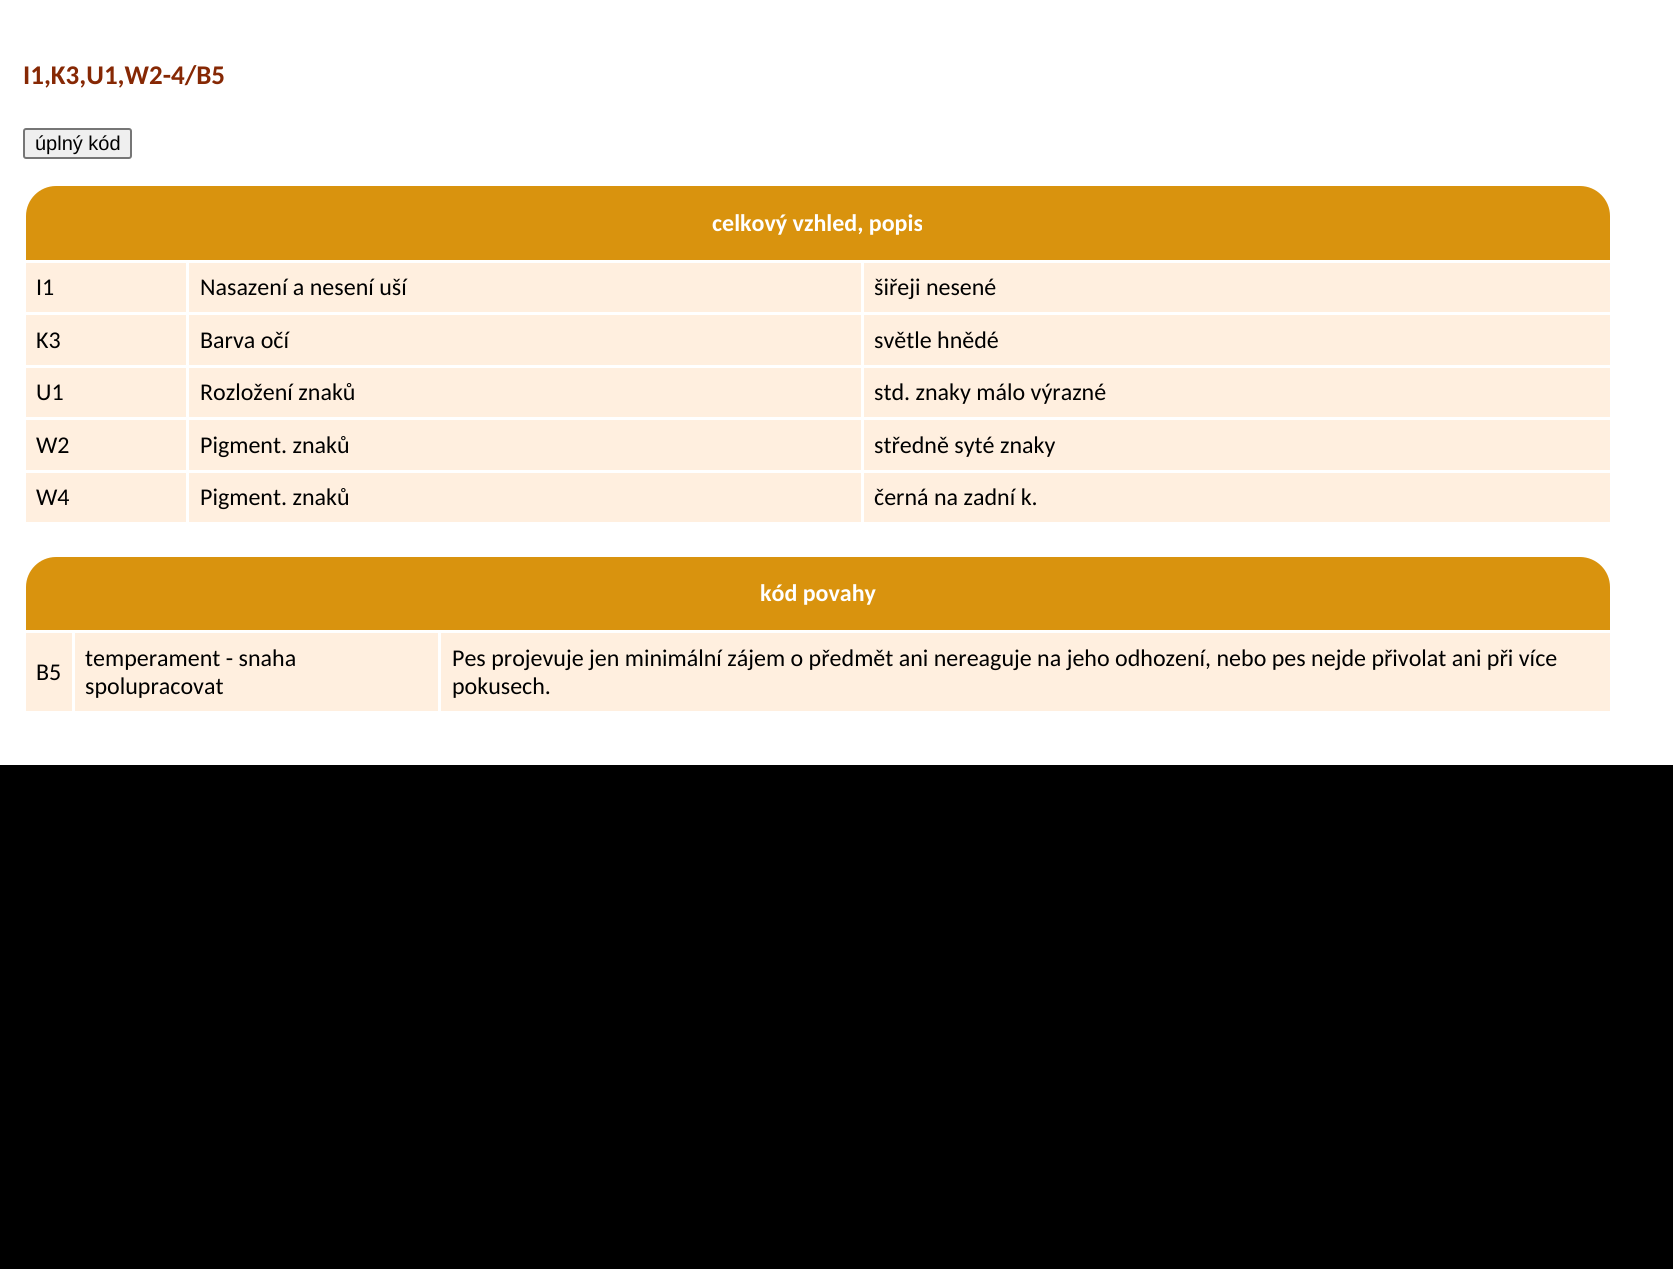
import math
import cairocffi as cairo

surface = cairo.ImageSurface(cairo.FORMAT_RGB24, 1673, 1269)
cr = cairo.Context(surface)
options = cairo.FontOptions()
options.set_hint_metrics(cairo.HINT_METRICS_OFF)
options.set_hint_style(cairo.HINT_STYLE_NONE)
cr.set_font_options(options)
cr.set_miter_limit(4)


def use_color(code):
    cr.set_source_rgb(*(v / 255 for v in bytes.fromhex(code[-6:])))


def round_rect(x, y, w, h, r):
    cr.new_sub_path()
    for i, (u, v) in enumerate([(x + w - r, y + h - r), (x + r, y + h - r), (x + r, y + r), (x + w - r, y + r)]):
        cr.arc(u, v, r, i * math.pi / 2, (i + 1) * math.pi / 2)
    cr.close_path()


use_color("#000000")
cr.paint()
use_color("#ffffff")
cr.rectangle(0, 0, 1673, 765)
cr.fill()
cr.select_font_face("Carlito", cairo.FONT_SLANT_NORMAL, cairo.FONT_WEIGHT_BOLD)
cr.set_font_size(27)
use_color("#862804")
cr.move_to(23, 84)
cr.show_text("I1,K3,U1,W2-4/B5")
use_color("#efefef")
round_rect(24, 129, 107, 29, 2)
cr.fill_preserve()
use_color("#767676")
cr.stroke()
cr.select_font_face("Liberation Sans")
cr.set_font_size(20)
use_color("#000000")
cr.move_to(35, 150)
cr.show_text("úplný kód")
use_color("#d9930e")
cr.new_path()
cr.move_to(56, 186)
cr.line_to(1580, 186)
cr.curve_to(1596.5, 186, 1610, 199.5, 1610, 216)
cr.line_to(1610, 260)
cr.line_to(26, 260)
cr.line_to(26, 216)
cr.curve_to(26, 199.5, 39.5, 186, 56, 186)
cr.close_path()
cr.fill()
cr.select_font_face("Carlito", cairo.FONT_SLANT_NORMAL, cairo.FONT_WEIGHT_BOLD)
cr.set_font_size(24)
use_color("#ffffff")
cr.move_to(712, 231)
cr.show_text("celkový vzhled, popis")
use_color("#ffefdf")
cr.rectangle(26, 263, 160, 49)
cr.fill()
cr.select_font_face("Carlito")
use_color("#000000")
cr.move_to(36, 295)
cr.show_text("I1")
use_color("#ffefdf")
cr.rectangle(189, 263, 672, 49)
cr.fill()
use_color("#000000")
cr.move_to(200, 295)
cr.show_text("Nasazení a nesení uší")
use_color("#ffefdf")
cr.rectangle(864, 263, 746, 49)
cr.fill()
use_color("#000000")
cr.move_to(874, 295)
cr.show_text("šiřeji nesené")
use_color("#ffefdf")
cr.rectangle(26, 315, 160, 50)
cr.fill()
use_color("#000000")
cr.move_to(36, 348)
cr.show_text("K3")
use_color("#ffefdf")
cr.rectangle(189, 315, 672, 50)
cr.fill()
use_color("#000000")
cr.move_to(200, 348)
cr.show_text("Barva očí")
use_color("#ffefdf")
cr.rectangle(864, 315, 746, 50)
cr.fill()
use_color("#000000")
cr.move_to(874, 348)
cr.show_text("světle hnědé")
use_color("#ffefdf")
cr.rectangle(26, 368, 160, 49)
cr.fill()
use_color("#000000")
cr.move_to(36, 400)
cr.show_text("U1")
use_color("#ffefdf")
cr.rectangle(189, 368, 672, 49)
cr.fill()
use_color("#000000")
cr.move_to(200, 400)
cr.show_text("Rozložení znaků")
use_color("#ffefdf")
cr.rectangle(864, 368, 746, 49)
cr.fill()
use_color("#000000")
cr.move_to(874, 400)
cr.show_text("std. znaky málo výrazné")
use_color("#ffefdf")
cr.rectangle(26, 420, 160, 50)
cr.fill()
use_color("#000000")
cr.move_to(36, 453)
cr.show_text("W2")
use_color("#ffefdf")
cr.rectangle(189, 420, 672, 50)
cr.fill()
use_color("#000000")
cr.move_to(200, 453)
cr.show_text("Pigment. znaků")
use_color("#ffefdf")
cr.rectangle(864, 420, 746, 50)
cr.fill()
use_color("#000000")
cr.move_to(874, 453)
cr.show_text("středně syté znaky")
use_color("#ffefdf")
cr.rectangle(26, 473, 160, 49)
cr.fill()
use_color("#000000")
cr.move_to(36, 505)
cr.show_text("W4")
use_color("#ffefdf")
cr.rectangle(189, 473, 672, 49)
cr.fill()
use_color("#000000")
cr.move_to(200, 505)
cr.show_text("Pigment. znaků")
use_color("#ffefdf")
cr.rectangle(864, 473, 746, 49)
cr.fill()
use_color("#000000")
cr.move_to(874, 505)
cr.show_text("černá na zadní k.")
use_color("#d9930e")
cr.new_path()
cr.move_to(56, 557)
cr.line_to(1580, 557)
cr.curve_to(1596.5, 557, 1610, 570.5, 1610, 587)
cr.line_to(1610, 630)
cr.line_to(26, 630)
cr.line_to(26, 587)
cr.curve_to(26, 570.5, 39.5, 557, 56, 557)
cr.close_path()
cr.fill()
cr.select_font_face("Carlito", cairo.FONT_SLANT_NORMAL, cairo.FONT_WEIGHT_BOLD)
use_color("#ffffff")
cr.move_to(760, 601)
cr.show_text("kód povahy")
use_color("#ffefdf")
cr.rectangle(26, 633, 46, 78)
cr.fill()
cr.select_font_face("Carlito")
use_color("#000000")
cr.move_to(36, 680)
cr.show_text("B5")
use_color("#ffefdf")
cr.rectangle(75, 633, 363, 78)
cr.fill()
use_color("#000000")
cr.move_to(85, 666)
cr.show_text("temperament - snaha")
cr.move_to(85, 694)
cr.show_text("spolupracovat")
use_color("#ffefdf")
cr.rectangle(441, 633, 1169, 78)
cr.fill()
use_color("#000000")
cr.move_to(452, 666)
cr.show_text("Pes projevuje jen minimální zájem o předmět ani nereaguje na jeho odhození, nebo pes nejde přivolat ani při více")
cr.move_to(452, 694)
cr.show_text("pokusech.")
surface.write_to_png("result.png")
